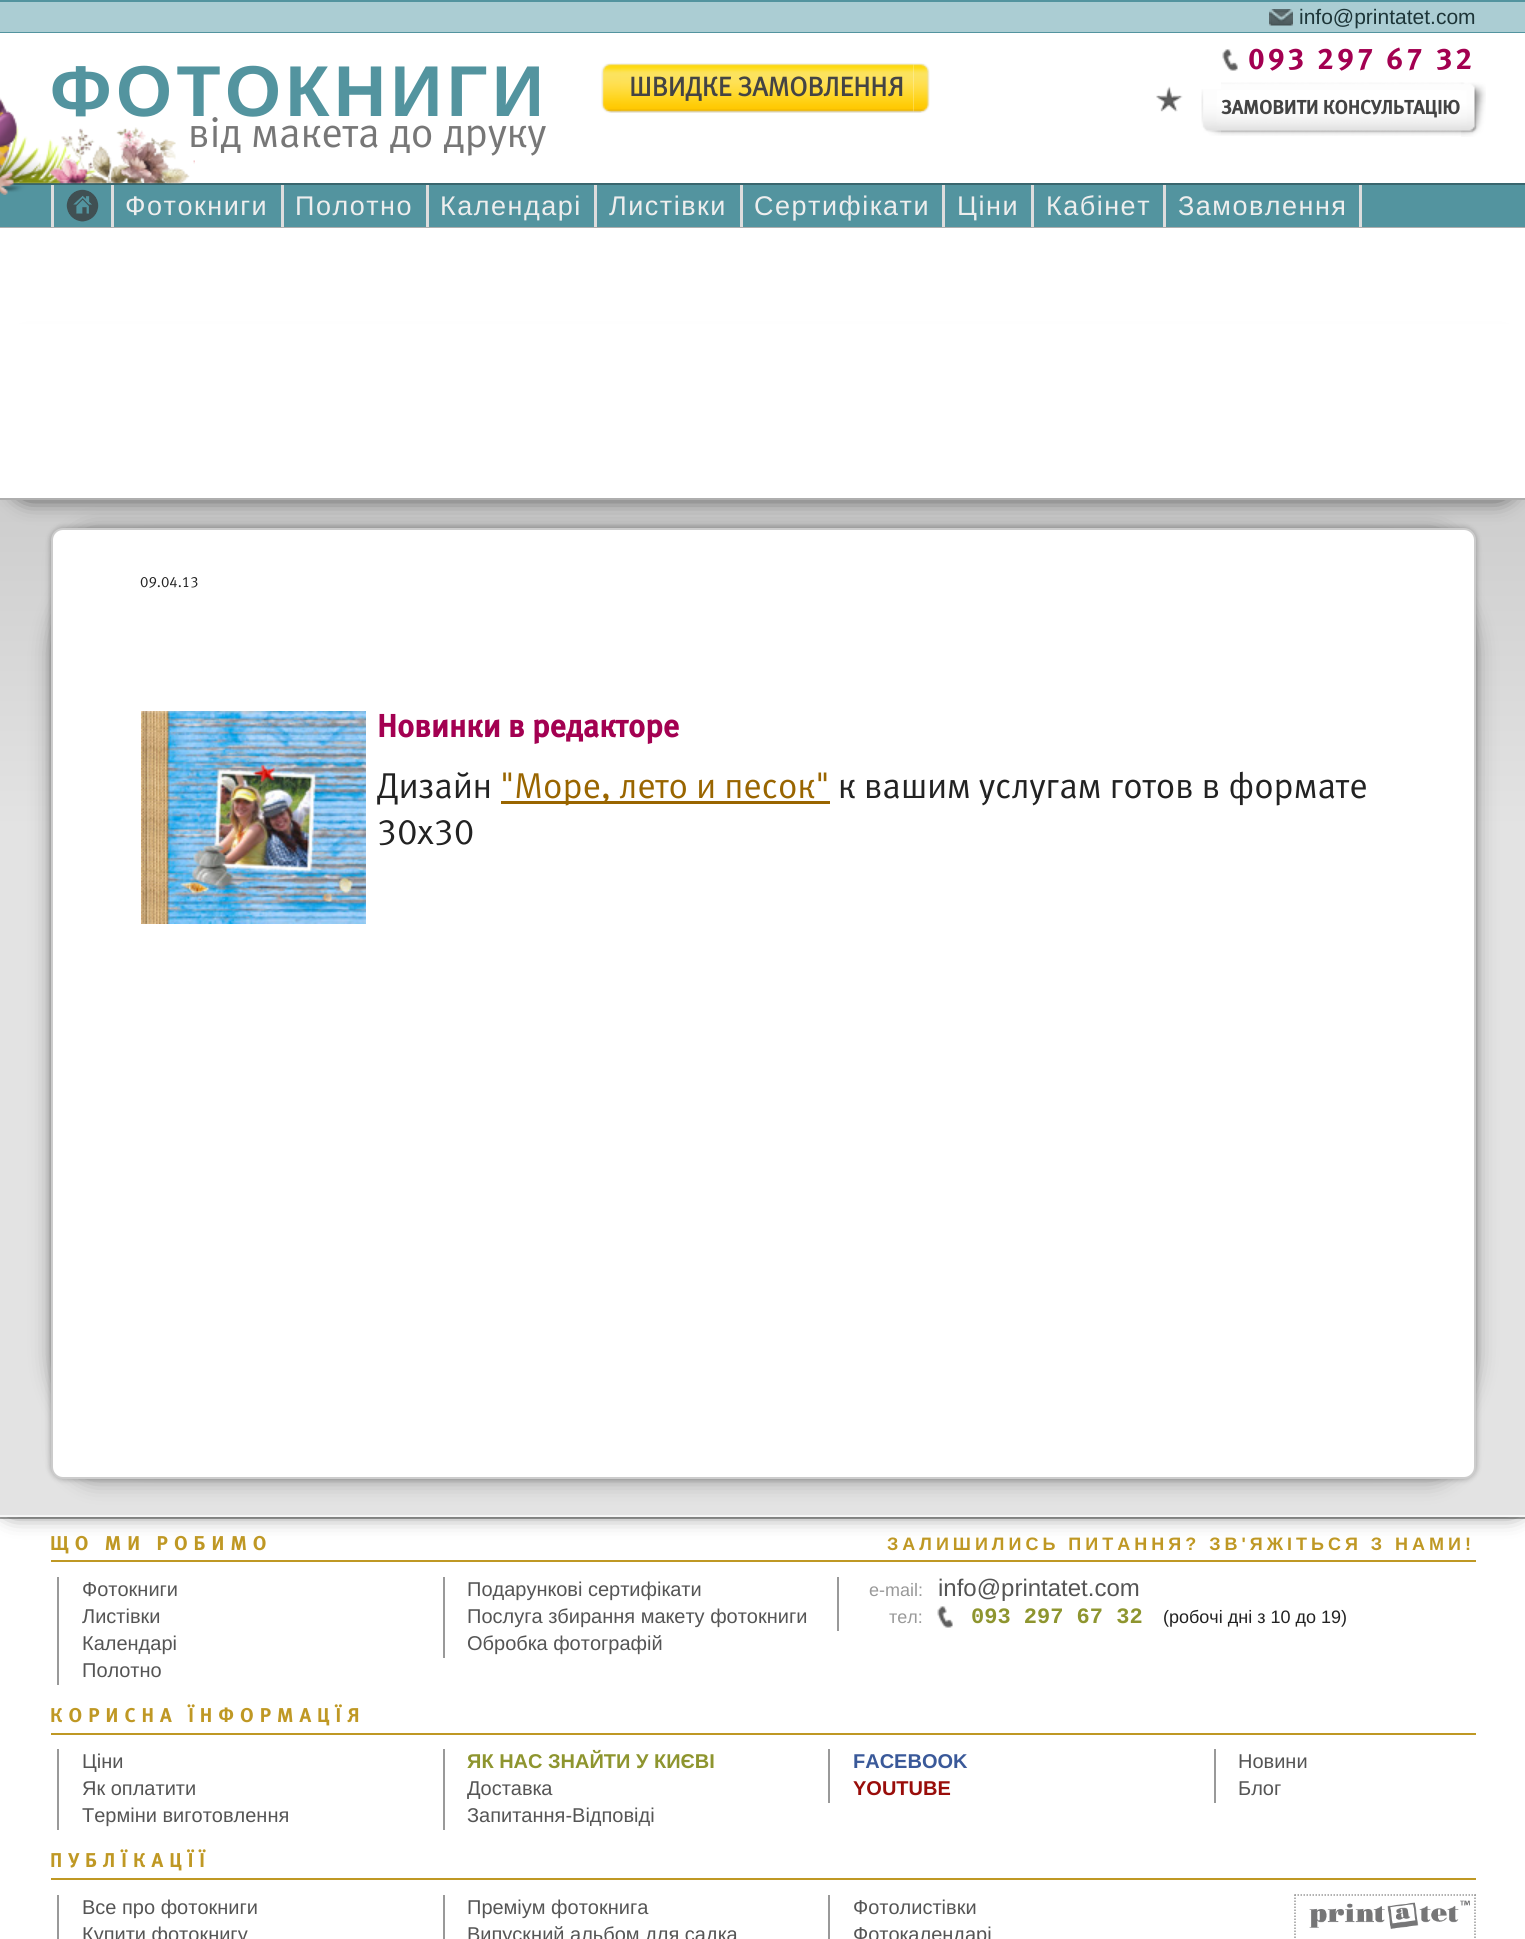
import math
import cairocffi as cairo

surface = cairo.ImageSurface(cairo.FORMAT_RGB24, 1525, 1939)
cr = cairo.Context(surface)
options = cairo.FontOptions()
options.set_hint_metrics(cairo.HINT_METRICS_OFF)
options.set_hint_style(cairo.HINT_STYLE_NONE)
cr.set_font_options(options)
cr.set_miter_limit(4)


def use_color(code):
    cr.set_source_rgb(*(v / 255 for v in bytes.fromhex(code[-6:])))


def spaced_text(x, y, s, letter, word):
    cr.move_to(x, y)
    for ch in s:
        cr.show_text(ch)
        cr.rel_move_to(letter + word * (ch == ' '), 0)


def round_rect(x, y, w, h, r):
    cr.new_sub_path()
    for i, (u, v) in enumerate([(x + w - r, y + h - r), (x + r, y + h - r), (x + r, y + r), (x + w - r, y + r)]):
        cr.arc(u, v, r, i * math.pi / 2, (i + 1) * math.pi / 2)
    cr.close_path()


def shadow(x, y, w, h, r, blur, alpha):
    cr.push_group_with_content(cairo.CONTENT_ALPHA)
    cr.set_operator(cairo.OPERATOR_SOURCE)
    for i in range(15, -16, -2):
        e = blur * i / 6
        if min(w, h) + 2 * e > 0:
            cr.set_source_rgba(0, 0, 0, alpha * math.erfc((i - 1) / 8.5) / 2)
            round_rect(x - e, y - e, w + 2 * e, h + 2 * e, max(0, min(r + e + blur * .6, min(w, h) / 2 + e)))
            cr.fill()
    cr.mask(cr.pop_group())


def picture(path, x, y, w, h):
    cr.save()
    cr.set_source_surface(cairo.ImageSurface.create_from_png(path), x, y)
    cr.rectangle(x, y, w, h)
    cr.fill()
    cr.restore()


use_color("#ffffff")
cr.paint()
use_color("#abcdd3")
cr.rectangle(0, 2, 1525, 30)
cr.fill()
use_color("#53949f")
cr.rectangle(0, 0, 1525, 2)
cr.fill()
cr.rectangle(0, 32, 1525, 1)
cr.fill()
picture("img1.png", 1269, 9, 24, 17)
cr.select_font_face("Liberation Sans")
cr.set_font_size(21)
use_color("#1d3538")
cr.move_to(1299, 24)
cr.show_text("info@printatet.com")
use_color("#53949f")
cr.rectangle(0, 185, 1525, 42)
cr.fill()
use_color("#39666e")
cr.rectangle(0, 183, 1525, 2)
cr.fill()
use_color("#dddddd")
cr.rectangle(51, 185, 3, 42)
cr.fill()
cr.rectangle(111, 185, 3, 42)
cr.fill()
picture("img10.png", 0, 97, 195, 98)
cr.select_font_face("Liberation Sans", cairo.FONT_SLANT_NORMAL, cairo.FONT_WEIGHT_BOLD)
cr.set_font_size(72)
use_color("#53949f")
spaced_text(50, 116, "ФОТОКНИГИ", 4.5, 0)
picture("img2.png", 621, 63, 293, 50)
picture("img3.png", 601, 63, 20, 50)
cr.select_font_face("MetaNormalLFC", cairo.FONT_SLANT_NORMAL, cairo.FONT_WEIGHT_BOLD)
cr.set_font_size(27)
use_color("#444444")
cr.move_to(629, 96)
cr.show_text("ШВИДКЕ ЗАМОВЛЕННЯ")
picture("img4.png", 913, 63, 17, 50)
cr.select_font_face("MetaNormalLFC")
cr.set_font_size(42)
use_color("#777777")
cr.move_to(188, 147)
cr.show_text("від макета до друку")
picture("img5.png", 1222, 49, 16, 22)
cr.select_font_face("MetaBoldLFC", cairo.FONT_SLANT_NORMAL, cairo.FONT_WEIGHT_BOLD)
cr.set_font_size(30)
use_color("#a30051")
spaced_text(1248, 69, "093 297 67 32", 3, 0)
picture("img6.png", 1156, 86, 27, 26)
picture("img7.png", 1221, 82, 240, 54)
picture("img8.png", 1201, 89, 20, 47)
cr.select_font_face("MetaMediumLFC", cairo.FONT_SLANT_NORMAL, cairo.FONT_WEIGHT_BOLD)
cr.set_font_size(19.5)
use_color("#444444")
cr.move_to(1221, 114)
cr.show_text("ЗАМОВИТИ КОНСУЛЬТАЦІЮ")
picture("img9.png", 1461, 82, 25, 55)
picture("img11.png", 66, 189, 33, 33)
cr.select_font_face("Liberation Sans")
cr.set_font_size(27)
use_color("#eeeeee")
spaced_text(125, 215, "Фотокниги", 1.5, 0)
use_color("#dddddd")
cr.rectangle(281, 185, 3, 42)
cr.fill()
use_color("#eeeeee")
spaced_text(295, 215, "Полотно", 1.5, 0)
use_color("#dddddd")
cr.rectangle(426, 185, 3, 42)
cr.fill()
use_color("#eeeeee")
spaced_text(440, 215, "Календарі", 1.5, 0)
use_color("#dddddd")
cr.rectangle(594, 185, 3, 42)
cr.fill()
use_color("#eeeeee")
spaced_text(609, 215, "Листівки", 1.5, 0)
use_color("#dddddd")
cr.rectangle(740, 185, 3, 42)
cr.fill()
use_color("#eeeeee")
spaced_text(754, 215, "Сертифікати", 1.5, 0)
use_color("#dddddd")
cr.rectangle(942, 185, 3, 42)
cr.fill()
use_color("#eeeeee")
spaced_text(957, 215, "Ціни", 1.5, 0)
use_color("#dddddd")
cr.rectangle(1031, 185, 3, 42)
cr.fill()
use_color("#eeeeee")
spaced_text(1046, 215, "Кабінет", 1.5, 0)
use_color("#dddddd")
cr.rectangle(1359, 185, 3, 42)
cr.fill()
cr.rectangle(1163, 185, 3, 42)
cr.fill()
use_color("#eeeeee")
spaced_text(1178, 215, "Замовлення", 1.5, 0)
use_color("#a4a5a4")
cr.rectangle(0, 1517, 1525, 2)
cr.fill()
use_color("#000000")
shadow(0, 1437, 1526, 75, 15, 11, 0.7)
use_color("#e3e3e3")
cr.rectangle(0, 828, 1525, 687)
cr.fill()
use_color("#aeaeae")
cr.rectangle(0, 227, 1525, 1)
cr.fill()
use_color("#f6f6f6")
cr.rectangle(0, 1515, 1525, 2)
cr.fill()
gradient = cairo.LinearGradient(0, 228, 0, 828)
gradient.add_color_stop_rgba(0, 0.733, 0.733, 0.733, 1)
gradient.add_color_stop_rgba(1, 0.89, 0.89, 0.89, 1)
cr.set_source(gradient)
cr.rectangle(0, 500, 1525, 328)
cr.fill()
use_color("#000000")
shadow(14, 348, 1500, 150, 15, 11, 0.7)
shadow(65, 530, 1396, 951, 30, 11, 0.3)
use_color("#ffffff")
cr.rectangle(0, 324, 1525, 174)
cr.fill()
use_color("#aeaeae")
cr.rectangle(0, 498, 1525, 2)
cr.fill()
use_color("#000000")
shadow(51, 528, 1425, 951, 12, 3, 0.3)
shadow(51, 548, 1425, 912, 105, 11, 0.3)
use_color("#ffffff")
round_rect(52, 529, 1423, 949, 11)
cr.fill_preserve()
use_color("#cccccc")
cr.stroke()
cr.select_font_face("MetaNormalLFC")
cr.set_font_size(15)
use_color("#222222")
cr.move_to(140, 587)
cr.show_text("09.04.13")
picture("img12.png", 141, 711, 225, 213)
cr.select_font_face("MetaMediumLFC", cairo.FONT_SLANT_NORMAL, cairo.FONT_WEIGHT_BOLD)
cr.set_font_size(32)
use_color("#a30051")
cr.move_to(377, 737)
cr.show_text("Новинки в редакторе")
cr.select_font_face("MetaNormalLFC")
cr.set_font_size(36)
use_color("#222222")
cr.move_to(377, 798)
cr.show_text("Дизайн")
use_color("#996500")
cr.rectangle(501, 801, 329, 3)
cr.fill()
cr.move_to(500, 798)
cr.show_text("\"Море, лето и песок\"")
use_color("#222222")
cr.move_to(838, 798)
cr.show_text("к вашим услугам готов в формате")
cr.move_to(377, 844)
cr.show_text("30х30")
use_color("#bf9824")
cr.rectangle(51, 1560, 1425, 2)
cr.fill()
cr.select_font_face("MetaBoldLFC", cairo.FONT_SLANT_NORMAL, cairo.FONT_WEIGHT_BOLD)
cr.set_font_size(20)
spaced_text(50, 1550, "ЩО МИ РОБИМО", 6, 0)
cr.select_font_face("Liberation Sans", cairo.FONT_SLANT_NORMAL, cairo.FONT_WEIGHT_BOLD)
cr.set_font_size(18)
spaced_text(887, 1550, "ЗАЛИШИЛИСЬ ПИТАННЯ? ЗВ'ЯЖІТЬСЯ З НАМИ!", 4, 0)
use_color("#999999")
cr.rectangle(57, 1577, 2, 108)
cr.fill()
cr.select_font_face("Liberation Sans")
cr.set_font_size(20)
use_color("#555555")
cr.move_to(82, 1596)
cr.show_text("Фотокниги")
cr.move_to(82, 1623)
cr.show_text("Листівки")
cr.move_to(82, 1650)
cr.show_text("Календарі")
cr.move_to(82, 1677)
cr.show_text("Полотно")
use_color("#999999")
cr.rectangle(443, 1577, 2, 81)
cr.fill()
use_color("#555555")
cr.move_to(467, 1596)
cr.show_text("Подарункові сертифікати")
cr.move_to(467, 1623)
cr.show_text("Послуга збирання макету фотокниги")
cr.move_to(467, 1650)
cr.show_text("Обробка фотографій")
use_color("#999999")
cr.rectangle(837, 1577, 2, 54)
cr.fill()
cr.set_font_size(18)
cr.move_to(869, 1596)
cr.show_text("e-mail:")
cr.set_font_size(24)
use_color("#555555")
cr.move_to(938, 1596)
cr.show_text("info@printatet.com")
cr.set_font_size(18)
use_color("#999999")
cr.move_to(889, 1623)
cr.show_text("тел:")
picture("img5.png", 937, 1606, 16, 22)
cr.select_font_face("Liberation Mono", cairo.FONT_SLANT_NORMAL, cairo.FONT_WEIGHT_BOLD)
cr.set_font_size(22)
use_color("#8e952f")
cr.move_to(971, 1623)
cr.show_text("093 297 67 32")
cr.select_font_face("Liberation Sans")
cr.set_font_size(18)
use_color("#222222")
cr.move_to(1163, 1623)
cr.show_text("(робочі дні з 10 до 19)")
use_color("#bf9824")
cr.rectangle(51, 1733, 1425, 2)
cr.fill()
cr.select_font_face("MetaBoldLFC", cairo.FONT_SLANT_NORMAL, cairo.FONT_WEIGHT_BOLD)
cr.set_font_size(20)
spaced_text(50, 1722, "КОРИСНА ІНФОРМАЦІЯ", 6, 0)
use_color("#999999")
cr.rectangle(57, 1749, 2, 81)
cr.fill()
cr.select_font_face("Liberation Sans")
use_color("#555555")
cr.move_to(82, 1768)
cr.show_text("Ціни")
cr.move_to(82, 1795)
cr.show_text("Як оплатити")
cr.move_to(82, 1822)
cr.show_text("Терміни виготовлення")
use_color("#999999")
cr.rectangle(443, 1749, 2, 81)
cr.fill()
cr.select_font_face("Liberation Sans", cairo.FONT_SLANT_NORMAL, cairo.FONT_WEIGHT_BOLD)
use_color("#8e952f")
cr.move_to(467, 1768)
cr.show_text("ЯК НАС ЗНАЙТИ У КИЄВІ")
cr.select_font_face("Liberation Sans")
use_color("#555555")
cr.move_to(467, 1795)
cr.show_text("Доставка")
cr.move_to(467, 1822)
cr.show_text("Запитання-Відповіді")
use_color("#999999")
cr.rectangle(828, 1749, 2, 54)
cr.fill()
cr.select_font_face("Liberation Sans", cairo.FONT_SLANT_NORMAL, cairo.FONT_WEIGHT_BOLD)
use_color("#3a5999")
cr.move_to(853, 1768)
cr.show_text("FACEBOOK")
use_color("#990d0a")
cr.move_to(853, 1795)
cr.show_text("YOUTUBE")
use_color("#999999")
cr.rectangle(1214, 1749, 2, 54)
cr.fill()
cr.select_font_face("Liberation Sans")
use_color("#555555")
cr.move_to(1238, 1768)
cr.show_text("Новини")
cr.move_to(1238, 1795)
cr.show_text("Блог")
use_color("#bf9824")
cr.rectangle(51, 1878, 1425, 2)
cr.fill()
cr.select_font_face("MetaBoldLFC", cairo.FONT_SLANT_NORMAL, cairo.FONT_WEIGHT_BOLD)
spaced_text(50, 1867, "ПУБЛІКАЦІІ", 6, 0)
use_color("#999999")
cr.rectangle(57, 1895, 2, 44)
cr.fill()
cr.select_font_face("Liberation Sans")
use_color("#555555")
cr.move_to(82, 1914)
cr.show_text("Все про фотокниги")
cr.move_to(82, 1941)
cr.show_text("Купити фотокнигу")
use_color("#999999")
cr.rectangle(443, 1895, 2, 44)
cr.fill()
use_color("#555555")
cr.move_to(467, 1914)
cr.show_text("Преміум фотокнига")
cr.move_to(467, 1941)
cr.show_text("Випускний альбом для садка")
use_color("#999999")
cr.rectangle(828, 1895, 2, 44)
cr.fill()
use_color("#555555")
cr.move_to(853, 1914)
cr.show_text("Фотолистівки")
cr.move_to(853, 1941)
cr.show_text("Фотокалендарі")
cr.new_path()
cr.move_to(1294.5, 1895)
cr.line_to(1476, 1895)
use_color("#999999")
cr.set_line_width(1.5)
cr.set_dash([1.5, 1.5])
cr.stroke()
cr.new_path()
cr.move_to(1475, 1894.5)
cr.line_to(1475, 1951.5)
cr.stroke()
cr.new_path()
cr.move_to(1295, 1894.5)
cr.line_to(1295, 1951.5)
cr.stroke()
picture("img13.png", 1309, 1900, 161, 29)
surface.write_to_png("result.png")
